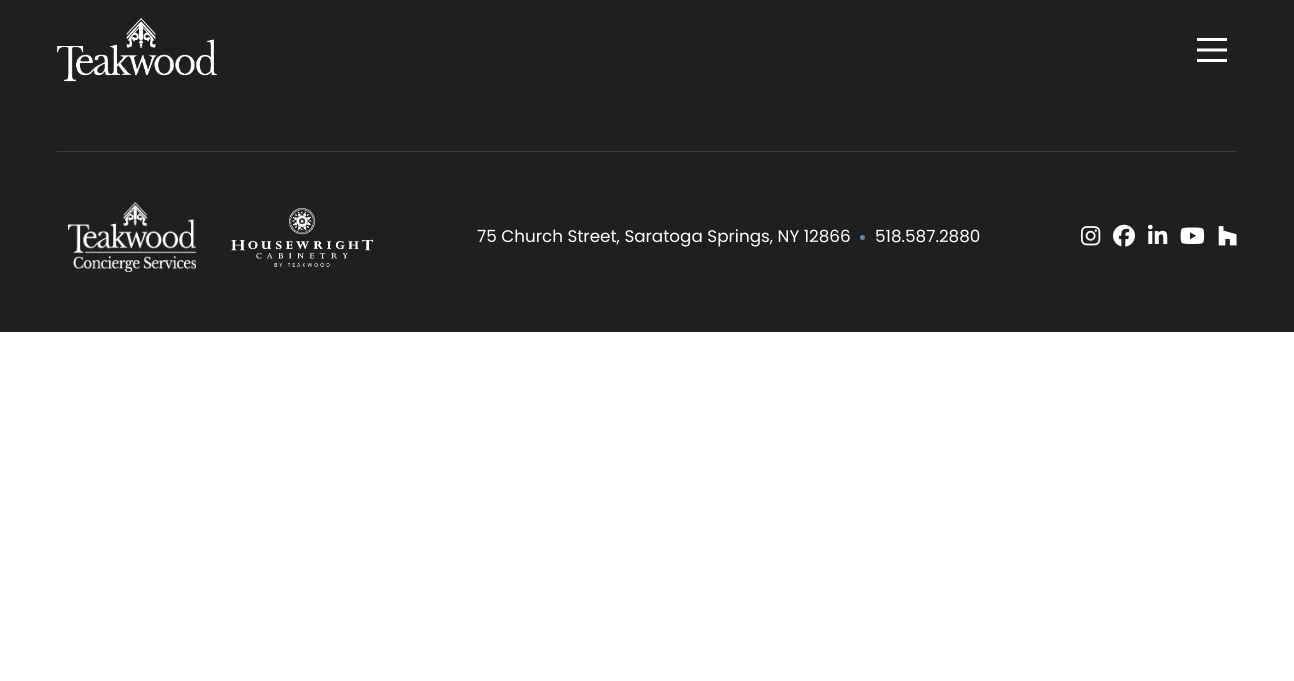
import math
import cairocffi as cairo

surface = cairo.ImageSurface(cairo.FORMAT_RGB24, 1294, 681)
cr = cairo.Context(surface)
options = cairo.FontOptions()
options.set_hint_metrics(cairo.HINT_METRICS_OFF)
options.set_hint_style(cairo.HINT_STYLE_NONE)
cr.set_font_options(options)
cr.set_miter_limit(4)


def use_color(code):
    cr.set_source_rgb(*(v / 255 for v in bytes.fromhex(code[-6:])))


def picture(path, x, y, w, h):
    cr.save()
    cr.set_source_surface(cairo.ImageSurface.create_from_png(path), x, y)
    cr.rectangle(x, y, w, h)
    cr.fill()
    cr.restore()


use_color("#ffffff")
cr.paint()
use_color("#1f1f20")
cr.rectangle(0, 0, 1294, 332)
cr.fill()
picture("img1.png", 57, 18, 160, 64)
use_color("#ffffff")
cr.rectangle(1197, 38, 30, 3)
cr.fill()
cr.new_path()
cr.move_to(1197, 50)
cr.line_to(1227, 50)
cr.set_line_width(3)
cr.stroke()
cr.rectangle(1197, 59, 30, 3)
cr.fill()
use_color("#3d3d3d")
cr.rectangle(57, 151, 1180, 1)
cr.fill()
picture("img2.png", 68, 202, 128, 70)
picture("img3.png", 231, 208, 142, 59)
cr.select_font_face("Poppins")
cr.set_font_size(16.8)
use_color("#ffffff")
cr.move_to(477, 242)
cr.show_text("75 Church Street, Saratoga Springs, NY 12866")
use_color("#5e88a2")
cr.new_path()
cr.arc(862.5, 237.5, 2.5, 0, 2 * math.pi)
cr.fill()
use_color("#ffffff")
cr.move_to(875, 242)
cr.show_text("518.587.2880")
picture("img4.png", 1081, 226, 20, 20)
picture("img5.png", 1113, 224, 22, 23)
picture("img6.png", 1148, 224, 20, 20)
picture("img7.png", 1180, 227, 25, 17)
picture("img8.png", 1218, 226, 19, 20)
surface.write_to_png("result.png")
